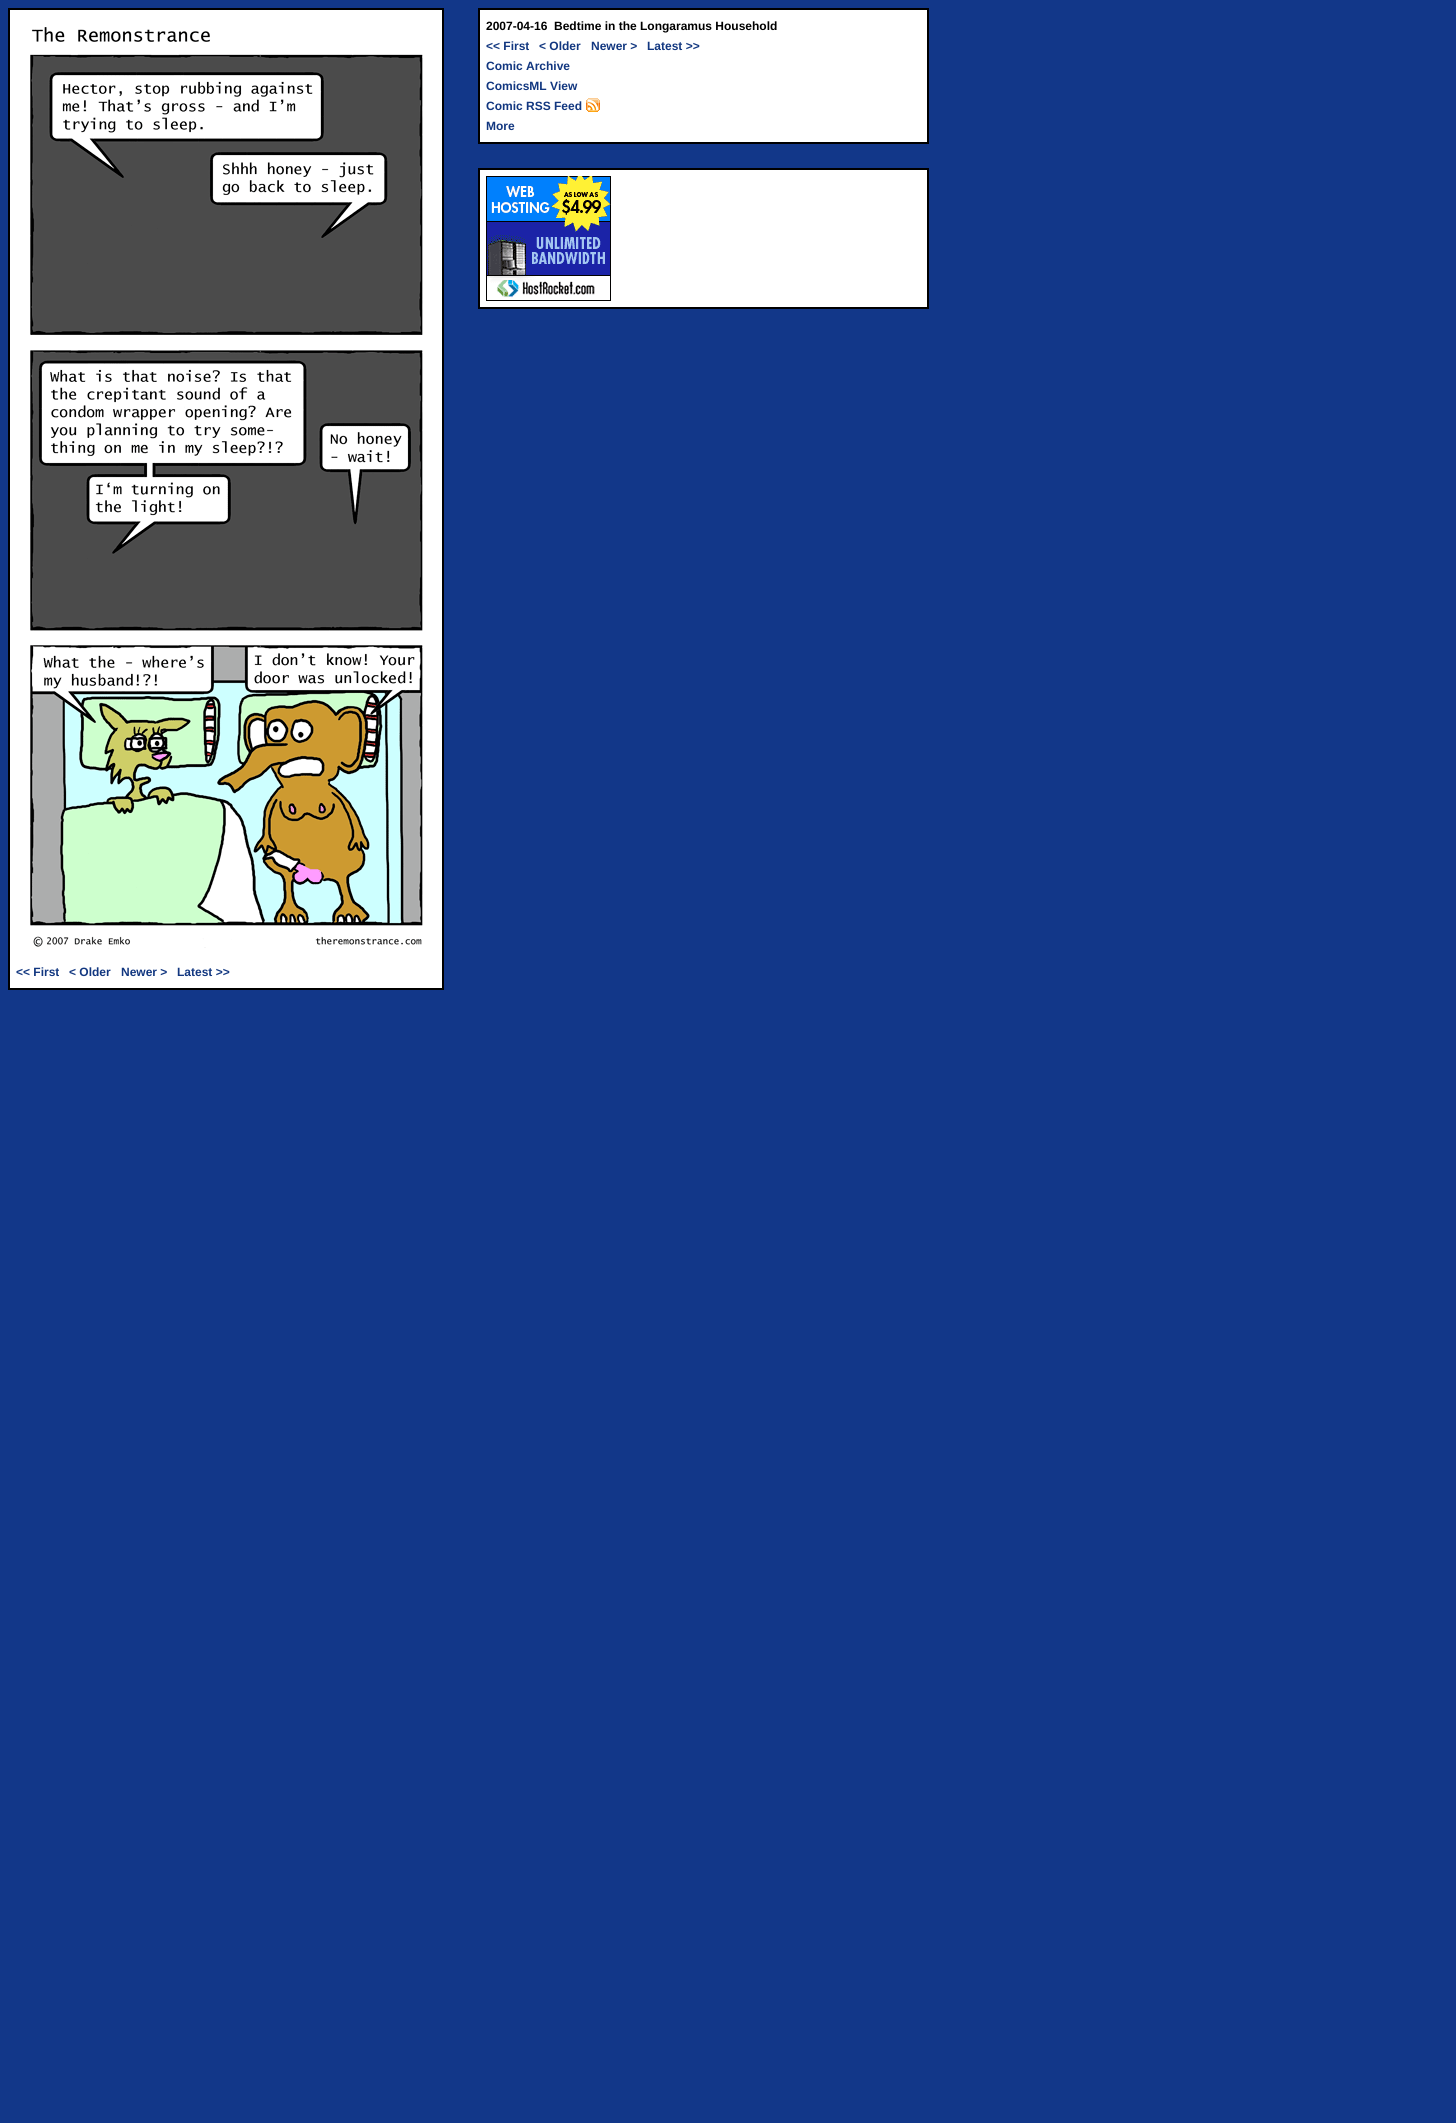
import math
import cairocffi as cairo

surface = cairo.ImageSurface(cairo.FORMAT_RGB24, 1456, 2123)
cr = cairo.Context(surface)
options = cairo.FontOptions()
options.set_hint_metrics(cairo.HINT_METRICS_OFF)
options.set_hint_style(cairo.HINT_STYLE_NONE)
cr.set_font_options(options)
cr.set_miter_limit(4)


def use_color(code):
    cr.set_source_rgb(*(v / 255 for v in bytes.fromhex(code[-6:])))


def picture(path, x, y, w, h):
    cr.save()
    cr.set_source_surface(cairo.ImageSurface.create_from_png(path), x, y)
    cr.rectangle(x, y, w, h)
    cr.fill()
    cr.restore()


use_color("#123789")
cr.paint()
use_color("#ffffff")
cr.rectangle(479, 9, 449, 134)
cr.fill_preserve()
use_color("#000000")
cr.stroke()
cr.select_font_face("Liberation Sans", cairo.FONT_SLANT_NORMAL, cairo.FONT_WEIGHT_BOLD)
cr.set_font_size(12)
cr.move_to(486, 30)
cr.show_text("2007-04-16")
cr.move_to(554, 30)
cr.show_text("Bedtime in the Longaramus Household")
use_color("#123780")
cr.move_to(486, 50)
cr.show_text("<< First")
cr.move_to(539, 50)
cr.show_text("< Older")
cr.move_to(591, 50)
cr.show_text("Newer >")
cr.move_to(647, 50)
cr.show_text("Latest >>")
cr.move_to(486, 70)
cr.show_text("Comic Archive")
cr.move_to(486, 90)
cr.show_text("ComicsML View")
cr.move_to(486, 110)
cr.show_text("Comic RSS Feed")
picture("img1.png", 586, 98, 14, 14)
cr.move_to(486, 130)
cr.show_text("More")
use_color("#ffffff")
cr.rectangle(479, 169, 449, 139)
cr.fill_preserve()
use_color("#000000")
cr.stroke()
picture("img2.png", 486, 176, 125, 125)
use_color("#ffffff")
cr.rectangle(9, 9, 434, 980)
cr.fill_preserve()
use_color("#000000")
cr.stroke()
picture("img3.png", 30, 27, 393, 922)
use_color("#123780")
cr.move_to(16, 976)
cr.show_text("<< First")
cr.move_to(69, 976)
cr.show_text("< Older")
cr.move_to(121, 976)
cr.show_text("Newer >")
cr.move_to(177, 976)
cr.show_text("Latest >>")
surface.write_to_png("result.png")
